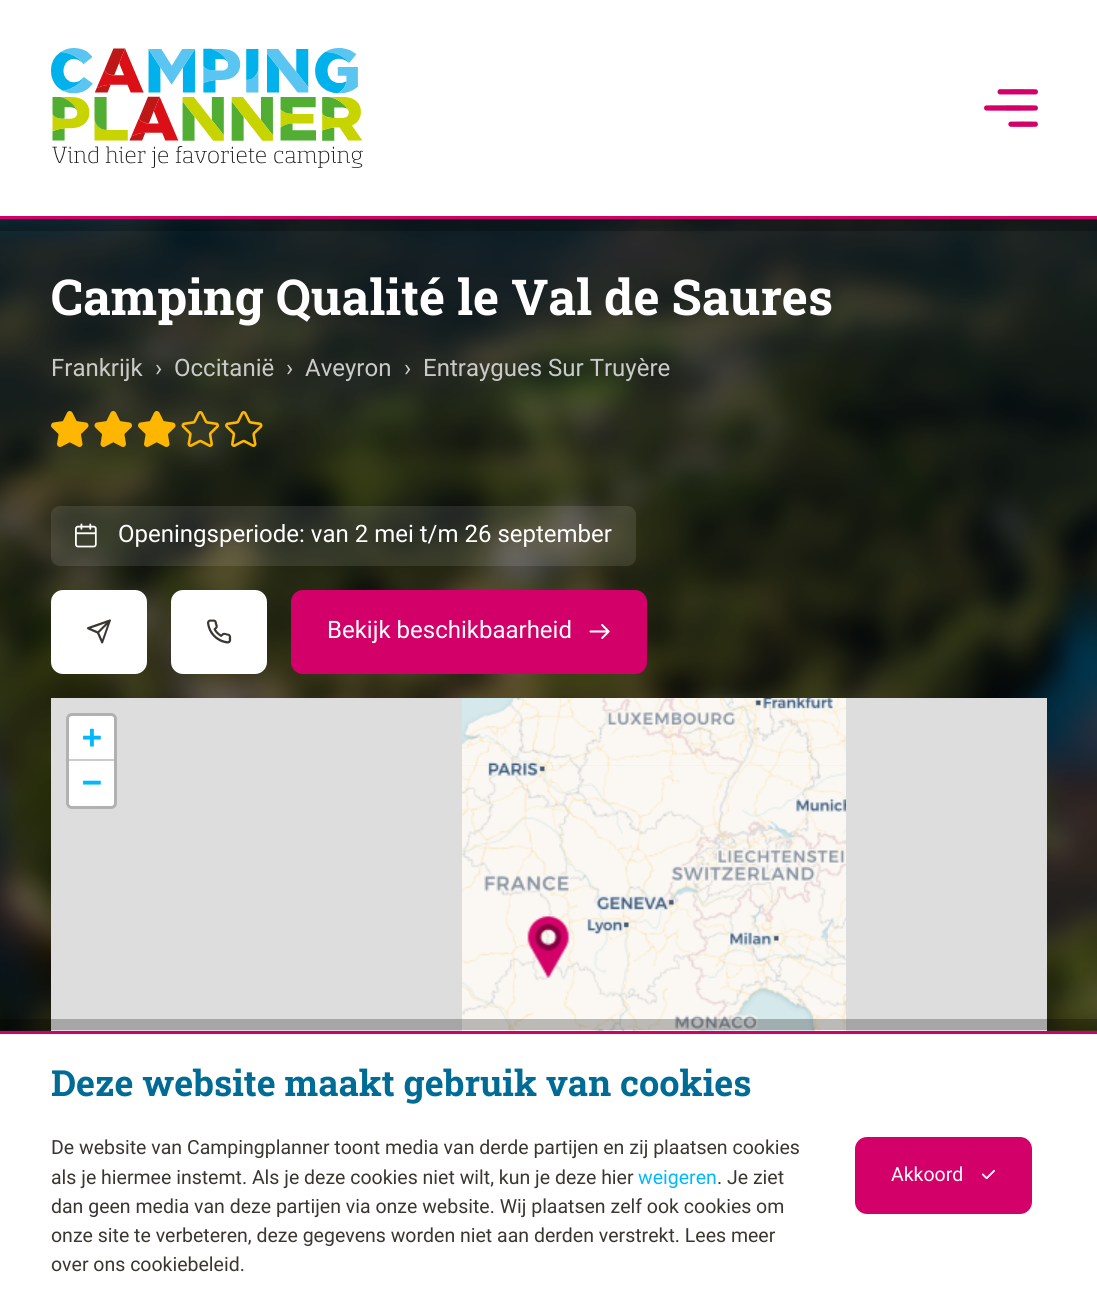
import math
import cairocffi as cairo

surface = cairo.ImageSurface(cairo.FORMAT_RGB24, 1097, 1302)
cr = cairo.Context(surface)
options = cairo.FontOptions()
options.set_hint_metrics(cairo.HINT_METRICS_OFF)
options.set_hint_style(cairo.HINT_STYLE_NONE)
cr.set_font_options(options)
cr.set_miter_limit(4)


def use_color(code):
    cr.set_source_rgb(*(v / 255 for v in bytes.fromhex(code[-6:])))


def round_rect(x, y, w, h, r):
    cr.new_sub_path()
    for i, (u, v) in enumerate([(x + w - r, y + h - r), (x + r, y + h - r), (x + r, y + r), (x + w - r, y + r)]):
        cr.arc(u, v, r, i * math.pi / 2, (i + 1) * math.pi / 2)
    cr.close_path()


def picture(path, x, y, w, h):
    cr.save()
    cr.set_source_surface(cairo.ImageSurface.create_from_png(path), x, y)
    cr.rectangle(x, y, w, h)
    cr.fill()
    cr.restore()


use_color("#ffffff")
cr.paint()
picture("img3.png", 0, 219, 1097, 812)
cr.set_source_rgba(0, 0, 0, 0.25)
cr.rectangle(0, 219, 1097, 12)
cr.fill()
use_color("#d40069")
cr.rectangle(0, 216, 1097, 3)
cr.fill()
picture("img1.png", 51, 48, 312, 120)
picture("img2.png", 984, 89, 54, 38)
cr.select_font_face("Roboto Slab", cairo.FONT_SLANT_NORMAL, cairo.FONT_WEIGHT_BOLD)
cr.set_font_size(49.5)
use_color("#ffffff")
cr.move_to(51, 315)
cr.show_text("Camping Qualité le Val de Saures")
cr.select_font_face("Roboto")
cr.set_font_size(24)
use_color("#cacbc8")
cr.move_to(51, 376)
cr.show_text("Frankrijk")
cr.move_to(155, 376)
cr.show_text("›")
cr.move_to(174, 376)
cr.show_text("Occitanië")
cr.move_to(286, 376)
cr.show_text("›")
cr.move_to(305, 376)
cr.show_text("Aveyron")
cr.move_to(404, 376)
cr.show_text("›")
cr.move_to(423, 376)
cr.show_text("Entraygues Sur Truyère")
picture("img4.png", 51, 411, 38, 36)
picture("img5.png", 94, 411, 38, 36)
picture("img6.png", 138, 411, 38, 36)
picture("img7.png", 181, 411, 38, 36)
picture("img8.png", 225, 411, 38, 36)
cr.set_source_rgba(1, 1, 1, 0.1)
round_rect(51, 506, 585, 60, 9)
cr.fill()
picture("img9.png", 75, 523, 22, 25)
use_color("#ffffff")
cr.move_to(118, 542)
cr.show_text("Openingsperiode: van 2 mei t/m 26 september")
round_rect(51, 590, 96, 84, 12)
cr.fill()
picture("img10.png", 87, 619, 24, 25)
round_rect(171, 590, 96, 84, 12)
cr.fill()
picture("img11.png", 207, 619, 25, 25)
use_color("#d40069")
round_rect(291, 590, 356, 84, 12)
cr.fill()
use_color("#ffffff")
cr.move_to(327, 638)
cr.show_text("Bekijk beschikbaarheid")
picture("img12.png", 589, 624, 21, 15)
use_color("#dddddd")
cr.rectangle(51, 698, 996, 333)
cr.fill()
round_rect(67.5, 714.5, 48, 93, 4.5)
use_color("#b1b1b1")
cr.set_line_width(3)
cr.stroke()
use_color("#ffffff")
cr.new_path()
cr.move_to(72, 716)
cr.line_to(111, 716)
cr.curve_to(112.5, 716, 114, 717.5, 114, 719)
cr.line_to(114, 761)
cr.line_to(69, 761)
cr.line_to(69, 719)
cr.curve_to(69, 717.5, 70.5, 716, 72, 716)
cr.close_path()
cr.fill()
use_color("#cccccc")
cr.rectangle(69, 759, 45, 2)
cr.fill()
cr.select_font_face("DejaVu Sans Mono", cairo.FONT_SLANT_NORMAL, cairo.FONT_WEIGHT_BOLD)
cr.set_font_size(33)
use_color("#00b8ff")
cr.move_to(82, 748)
cr.show_text("+")
use_color("#ffffff")
cr.new_path()
cr.move_to(69, 761)
cr.line_to(114, 761)
cr.line_to(114, 803)
cr.curve_to(114, 804.5, 112.5, 806, 111, 806)
cr.line_to(72, 806)
cr.curve_to(70.5, 806, 69, 804.5, 69, 803)
cr.close_path()
cr.fill()
use_color("#00b8ff")
cr.move_to(82, 793)
cr.show_text("−")
picture("img13.png", 462, 698, 384, 67)
picture("img14.png", 462, 765, 384, 266)
picture("img15.png", 527, 916, 43, 62)
cr.set_source_rgba(0, 0, 0, 0.25)
cr.rectangle(0, 1019, 1097, 11)
cr.fill()
use_color("#d40069")
cr.rectangle(0, 1031, 1097, 3)
cr.fill()
cr.select_font_face("Roboto Slab", cairo.FONT_SLANT_NORMAL, cairo.FONT_WEIGHT_BOLD)
cr.set_font_size(36)
use_color("#006b95")
cr.move_to(51, 1096)
cr.show_text("Deze website maakt gebruik van cookies")
cr.select_font_face("Roboto")
cr.set_font_size(19.5)
use_color("#3a3732")
cr.move_to(51, 1154)
cr.show_text("De website van Campingplanner toont media van derde partijen en zij plaatsen cookies")
cr.move_to(51, 1184)
cr.show_text("als je hiermee instemt. Als je deze cookies niet wilt, kun je deze hier")
use_color("#00b8ff")
cr.move_to(638, 1184)
cr.show_text("weigeren")
use_color("#3a3732")
cr.move_to(717, 1184)
cr.show_text(". Je ziet")
cr.move_to(51, 1213)
cr.show_text("dan geen media van deze partijen via onze website. Wij plaatsen zelf ook cookies om")
cr.move_to(51, 1242)
cr.show_text("onze site te verbeteren, deze gegevens worden niet aan derden verstrekt. Lees meer")
cr.move_to(51, 1271)
cr.show_text("over ons cookiebeleid.")
use_color("#d40069")
round_rect(855, 1137, 177, 77, 12)
cr.fill()
use_color("#ffffff")
cr.move_to(891, 1181)
cr.show_text("Akkoord")
picture("img16.png", 981, 1169, 14, 11)
surface.write_to_png("result.png")
